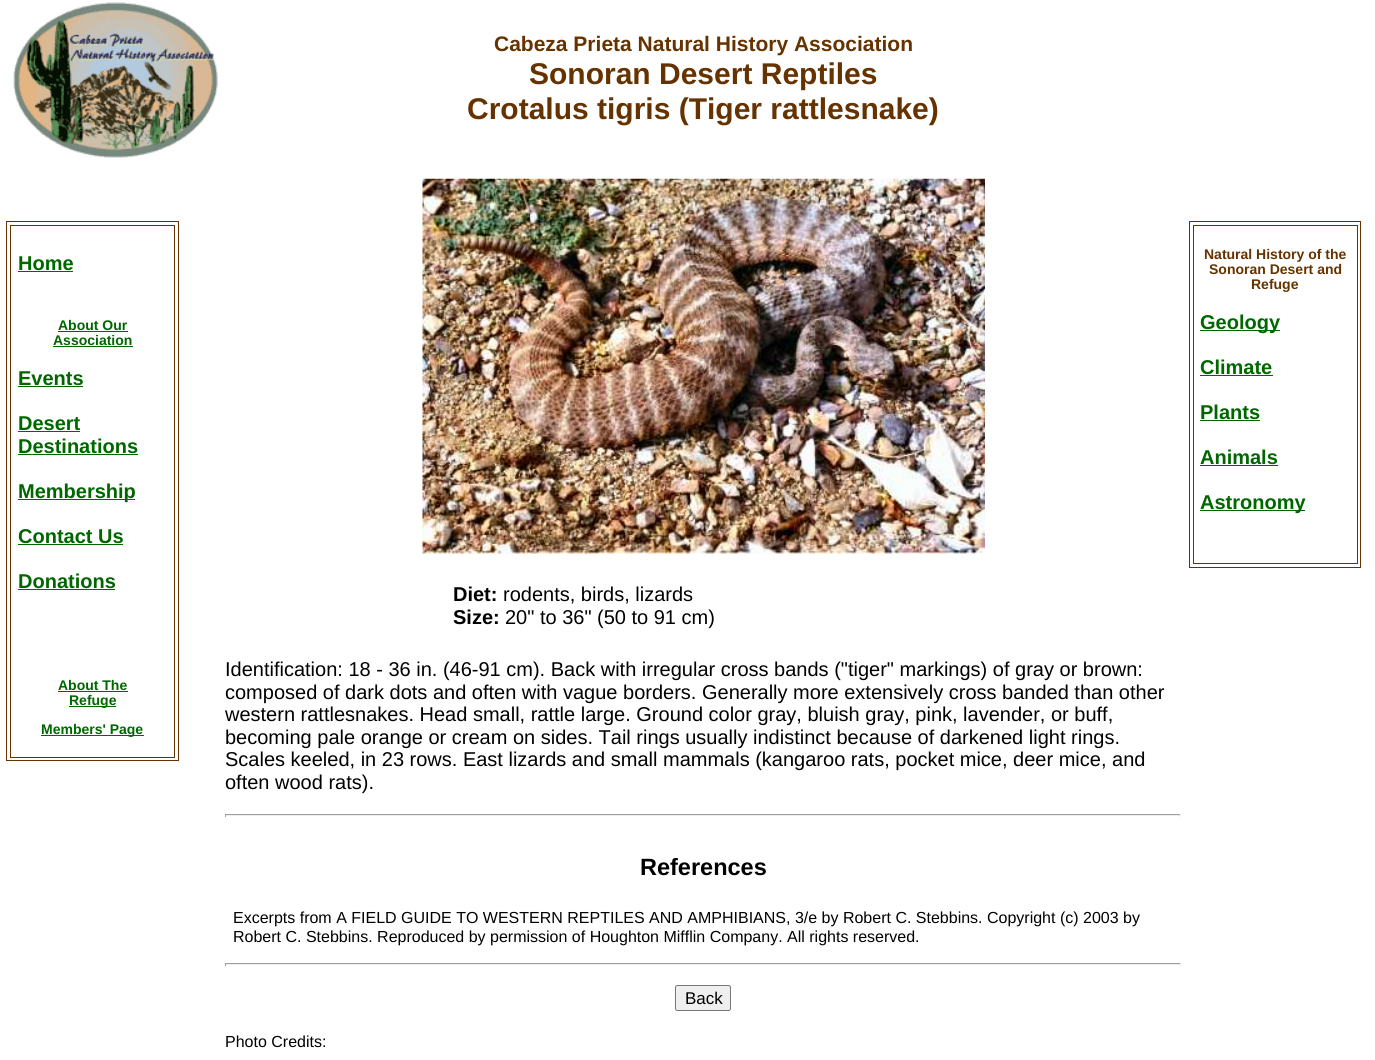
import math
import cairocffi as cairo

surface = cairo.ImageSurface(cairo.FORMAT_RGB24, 1375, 1060)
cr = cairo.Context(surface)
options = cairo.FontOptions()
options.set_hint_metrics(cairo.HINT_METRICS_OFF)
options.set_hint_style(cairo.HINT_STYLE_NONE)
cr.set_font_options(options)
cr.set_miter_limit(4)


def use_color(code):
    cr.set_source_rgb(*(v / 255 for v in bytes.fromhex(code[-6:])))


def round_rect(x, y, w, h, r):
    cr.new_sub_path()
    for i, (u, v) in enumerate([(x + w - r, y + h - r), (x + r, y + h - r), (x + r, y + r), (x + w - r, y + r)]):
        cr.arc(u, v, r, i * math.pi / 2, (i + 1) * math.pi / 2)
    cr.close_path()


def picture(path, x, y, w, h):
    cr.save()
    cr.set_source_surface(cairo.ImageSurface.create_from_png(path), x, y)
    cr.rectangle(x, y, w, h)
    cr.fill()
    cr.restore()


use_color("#ffffff")
cr.paint()
picture("img1.png", 13, 2, 205, 156)
cr.select_font_face("Liberation Sans", cairo.FONT_SLANT_NORMAL, cairo.FONT_WEIGHT_BOLD)
cr.set_font_size(21)
use_color("#663300")
cr.move_to(494, 51)
cr.show_text("Cabeza Prieta Natural History Association")
cr.set_font_size(30)
cr.move_to(529, 84)
cr.show_text("Sonoran Desert Reptiles")
cr.move_to(467, 119)
cr.show_text("Crotalus tigris (Tiger rattlesnake)")
cr.rectangle(6.5, 221.5, 172, 539)
cr.set_line_width(1)
cr.stroke()
cr.rectangle(10.5, 225.5, 164, 532)
cr.stroke()
cr.set_font_size(20)
use_color("#006600")
cr.move_to(18, 270)
cr.show_text("Home")
cr.rectangle(18, 271, 55, 1)
cr.fill()
cr.set_font_size(14)
cr.move_to(58, 330)
cr.show_text("About Our")
cr.rectangle(58, 331, 70, 1)
cr.fill()
cr.move_to(53, 345)
cr.show_text("Association")
cr.rectangle(53, 346, 80, 1)
cr.fill()
cr.set_font_size(20)
cr.move_to(18, 385)
cr.show_text("Events")
cr.rectangle(18, 386, 65, 1)
cr.fill()
cr.move_to(18, 430)
cr.show_text("Desert")
cr.rectangle(18, 431, 62, 1)
cr.fill()
cr.move_to(18, 453)
cr.show_text("Destinations")
cr.rectangle(18, 454, 120, 1)
cr.fill()
cr.rectangle(18, 499, 117, 1)
cr.fill()
cr.move_to(18, 498)
cr.show_text("Membership")
cr.move_to(18, 543)
cr.show_text("Contact Us")
cr.rectangle(18, 544, 105, 1)
cr.fill()
cr.move_to(18, 588)
cr.show_text("Donations")
cr.rectangle(18, 589, 97, 1)
cr.fill()
cr.set_font_size(14)
cr.move_to(58, 690)
cr.show_text("About The")
cr.rectangle(58, 691, 70, 1)
cr.fill()
cr.rectangle(69, 706, 47, 1)
cr.fill()
cr.move_to(69, 705)
cr.show_text("Refuge")
cr.rectangle(41, 735, 103, 1)
cr.fill()
cr.move_to(41, 734)
cr.show_text("Members' Page")
cr.rectangle(1189.5, 221.5, 171, 346)
use_color("#663300")
cr.stroke()
cr.rectangle(1193.5, 225.5, 164, 338)
cr.stroke()
cr.move_to(1204, 259)
cr.show_text("Natural History of the")
cr.move_to(1209, 274)
cr.show_text("Sonoran Desert and")
cr.move_to(1251, 289)
cr.show_text("Refuge")
use_color("#006600")
cr.rectangle(1200, 330, 80, 1)
cr.fill()
cr.set_font_size(20)
cr.move_to(1200, 329)
cr.show_text("Geology")
cr.move_to(1200, 374)
cr.show_text("Climate")
cr.rectangle(1200, 375, 73, 1)
cr.fill()
cr.move_to(1200, 419)
cr.show_text("Plants")
cr.rectangle(1200, 420, 60, 1)
cr.fill()
cr.move_to(1200, 464)
cr.show_text("Animals")
cr.rectangle(1200, 465, 78, 1)
cr.fill()
cr.rectangle(1200, 510, 105, 1)
cr.fill()
cr.move_to(1200, 509)
cr.show_text("Astronomy")
picture("img2.png", 422, 178, 563, 376)
use_color("#000000")
cr.move_to(453, 601)
cr.show_text("Diet:")
cr.select_font_face("Liberation Sans")
cr.move_to(503, 601)
cr.show_text("rodents, birds, lizards")
cr.select_font_face("Liberation Sans", cairo.FONT_SLANT_NORMAL, cairo.FONT_WEIGHT_BOLD)
cr.move_to(453, 624)
cr.show_text("Size:")
cr.select_font_face("Liberation Sans")
cr.move_to(505, 624)
cr.show_text("20\" to 36\" (50 to 91 cm)")
cr.move_to(225, 676)
cr.show_text("Identification: 18 - 36 in. (46-91 cm). Back with irregular cross bands (\"tiger\" markings) of gray or brown:")
cr.move_to(225, 699)
cr.show_text("composed of dark dots and often with vague borders. Generally more extensively cross banded than other")
cr.move_to(225, 721)
cr.show_text("western rattlesnakes. Head small, rattle large. Ground color gray, bluish gray, pink, lavender, or buff,")
cr.move_to(225, 744)
cr.show_text("becoming pale orange or cream on sides. Tail rings usually indistinct because of darkened light rings.")
cr.move_to(225, 766)
cr.show_text("Scales keeled, in 23 rows. East lizards and small mammals (kangaroo rats, pocket mice, deer mice, and")
cr.move_to(225, 789)
cr.show_text("often wood rats).")
use_color("#9f9f9f")
cr.rectangle(225, 814, 956, 1)
cr.fill()
use_color("#eeeeee")
cr.rectangle(1180, 814, 1, 3)
cr.fill()
cr.rectangle(225, 815, 956, 1)
cr.fill()
use_color("#9f9f9f")
cr.rectangle(225, 814, 1, 3)
cr.fill()
cr.select_font_face("Liberation Sans", cairo.FONT_SLANT_NORMAL, cairo.FONT_WEIGHT_BOLD)
cr.set_font_size(23.5)
use_color("#000000")
cr.move_to(640, 875)
cr.show_text("References")
cr.select_font_face("Liberation Sans")
cr.set_font_size(16)
cr.move_to(233, 923)
cr.show_text("Excerpts from A FIELD GUIDE TO WESTERN REPTILES AND AMPHIBIANS, 3/e by Robert C. Stebbins. Copyright (c) 2003 by")
cr.move_to(233, 942)
cr.show_text("Robert C. Stebbins. Reproduced by permission of Houghton Mifflin Company. All rights reserved.")
use_color("#9f9f9f")
cr.rectangle(225, 963, 956, 1)
cr.fill()
use_color("#eeeeee")
cr.rectangle(1180, 963, 1, 3)
cr.fill()
cr.rectangle(225, 964, 956, 1)
cr.fill()
use_color("#9f9f9f")
cr.rectangle(225, 963, 1, 3)
cr.fill()
use_color("#efefef")
round_rect(675.5, 985.5, 55, 25, 2)
cr.fill_preserve()
use_color("#767676")
cr.stroke()
cr.set_font_size(17)
use_color("#000000")
cr.move_to(685, 1004)
cr.show_text("Back")
cr.set_font_size(16)
cr.move_to(225, 1047)
cr.show_text("Photo Credits:")
surface.write_to_png("result.png")
